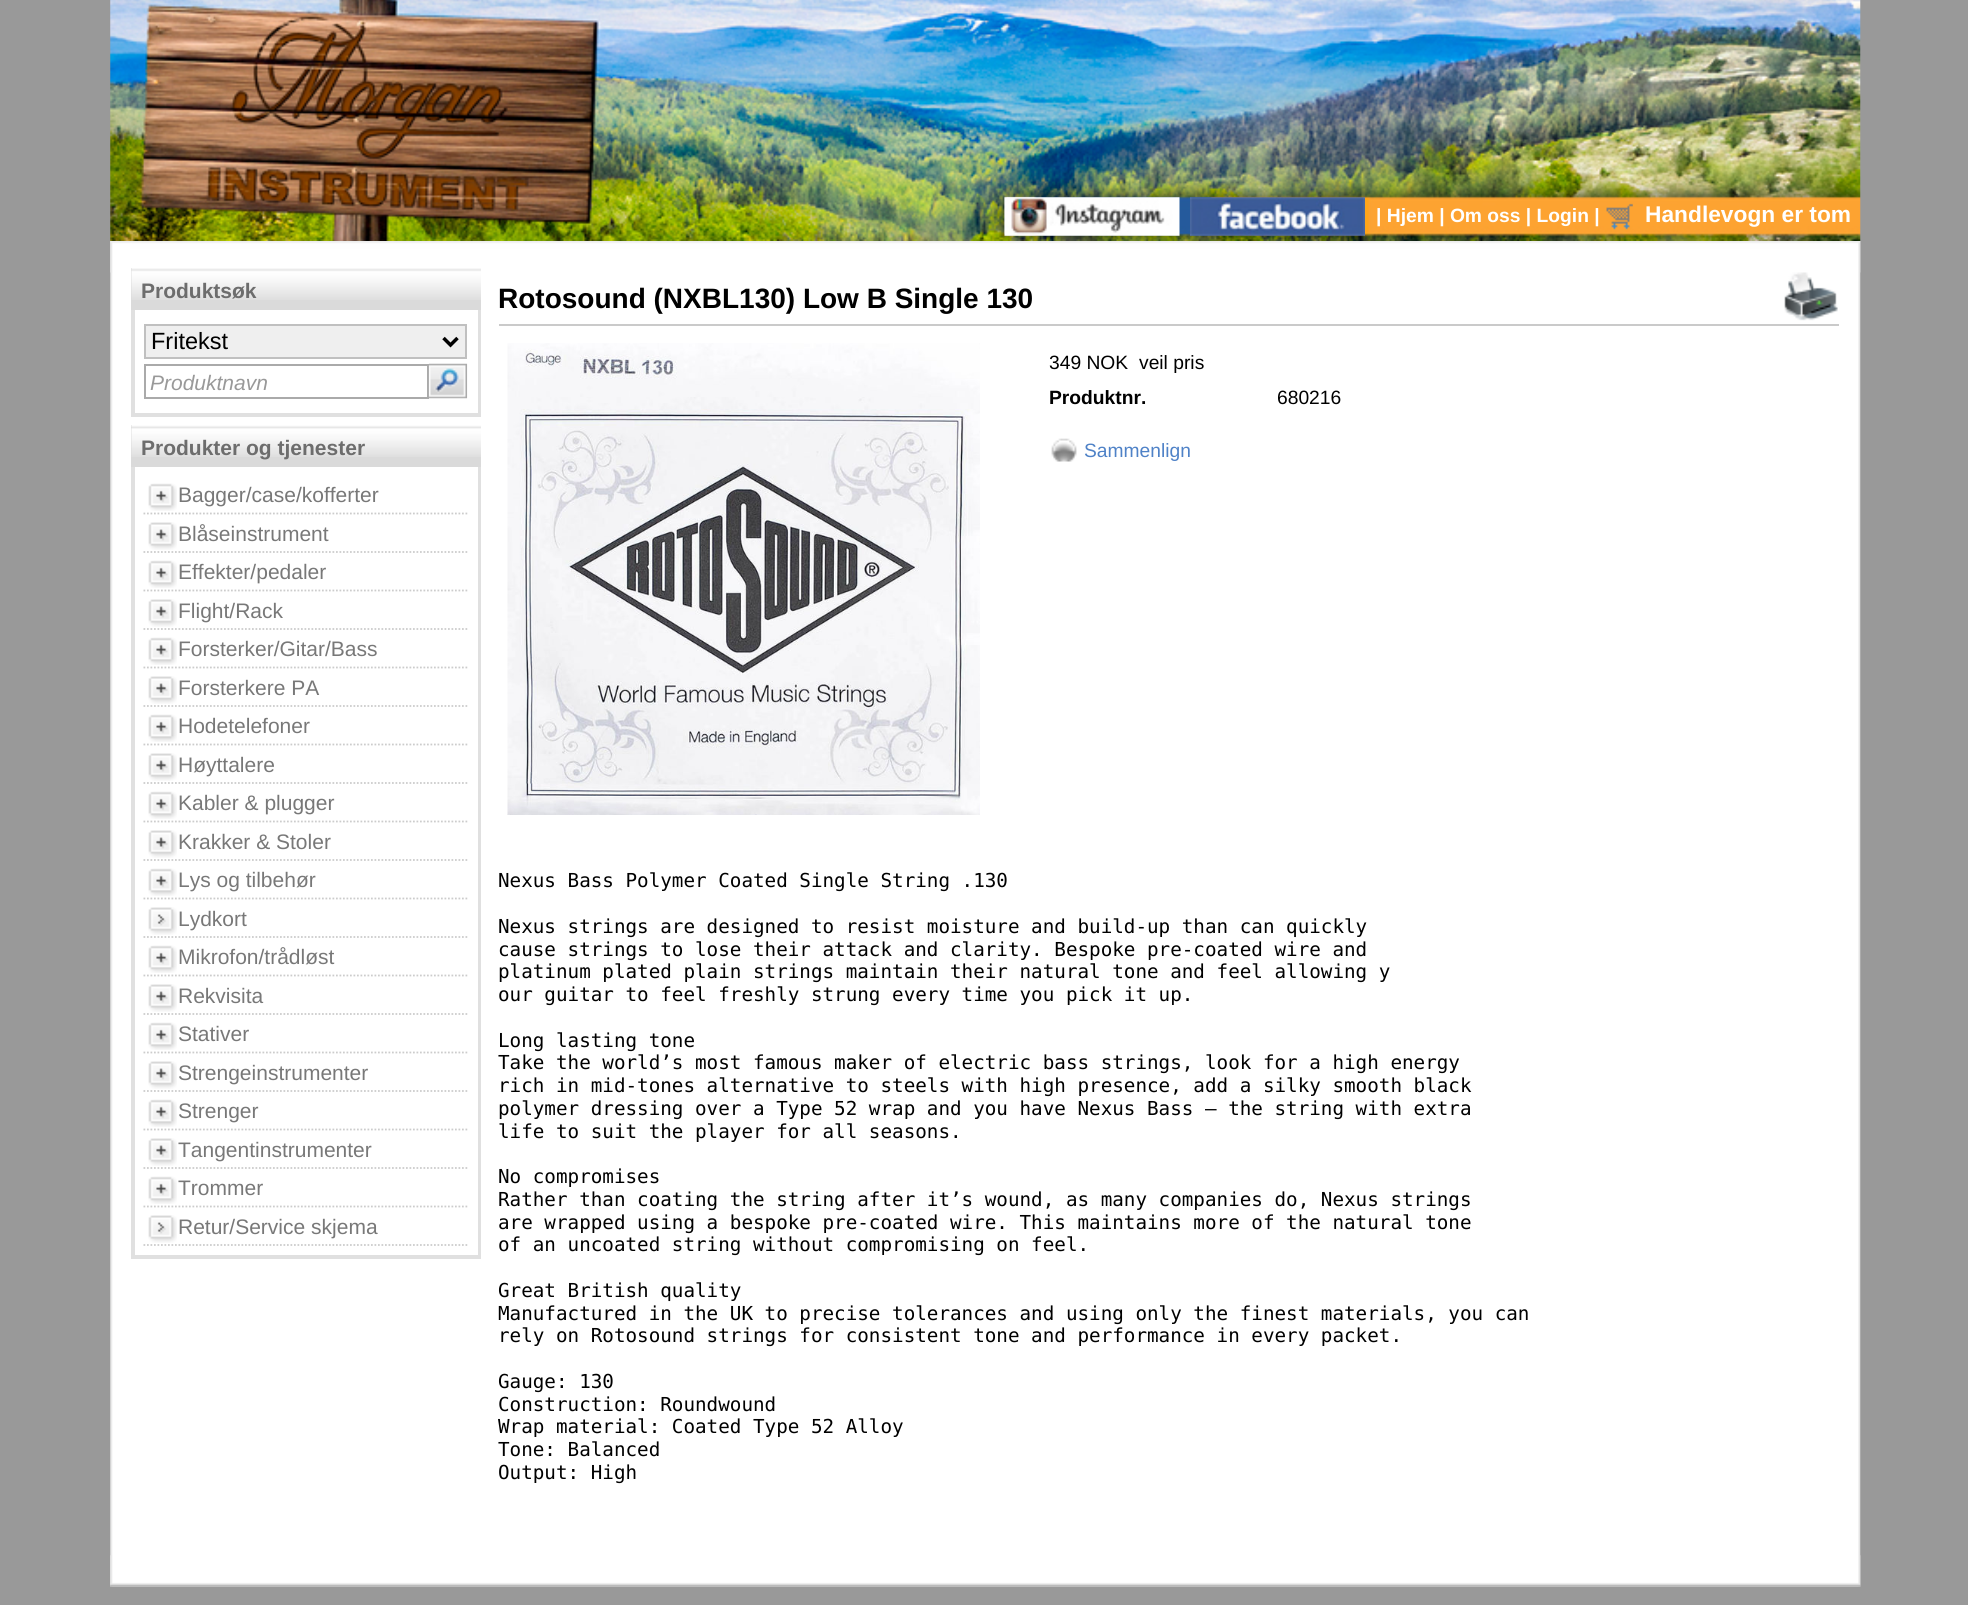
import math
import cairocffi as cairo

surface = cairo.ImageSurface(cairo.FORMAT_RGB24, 1968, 1605)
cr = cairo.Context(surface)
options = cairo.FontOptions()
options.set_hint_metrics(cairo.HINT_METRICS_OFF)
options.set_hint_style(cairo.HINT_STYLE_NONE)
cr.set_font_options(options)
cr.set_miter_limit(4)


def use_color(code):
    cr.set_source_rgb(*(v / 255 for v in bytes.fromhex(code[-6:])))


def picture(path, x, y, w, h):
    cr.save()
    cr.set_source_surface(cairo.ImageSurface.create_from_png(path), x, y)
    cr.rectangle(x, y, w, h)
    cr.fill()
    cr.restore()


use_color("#999999")
cr.paint()
picture("img1.png", 110, 0, 1751, 241)
picture("img2.png", 1004, 197, 176, 39)
picture("img3.png", 1190, 197, 175, 39)
cr.select_font_face("Liberation Sans", cairo.FONT_SLANT_NORMAL, cairo.FONT_WEIGHT_BOLD)
cr.set_font_size(19.25)
use_color("#ffffff")
cr.move_to(1376, 222)
cr.show_text("| Hjem | Om oss | Login |")
picture("img4.png", 1606, 203, 27, 27)
cr.set_font_size(22.75)
cr.move_to(1645, 222)
cr.show_text("Handlevogn er tom")
picture("img5.png", 110, 241, 1751, 1346)
picture("img6.png", 110, 1555, 1751, 32)
picture("img7.png", 110, 241, 1751, 32)
use_color("#dadada")
cr.rectangle(131, 268, 350, 42)
cr.fill()
picture("img8.png", 131, 268, 350, 32)
cr.set_font_size(21)
use_color("#6d6d6d")
cr.move_to(141, 298)
cr.show_text("Produktsøk")
use_color("#e0e0e0")
cr.rectangle(478, 310, 3, 107)
cr.fill()
cr.rectangle(131, 413, 350, 4)
cr.fill()
cr.rectangle(131, 310, 4, 107)
cr.fill()
use_color("#efefef")
cr.rectangle(145, 325, 321, 33)
cr.fill_preserve()
use_color("#c0c0c0")
cr.stroke()
cr.new_path()
cr.move_to(443.5, 338)
cr.line_to(450.5, 345)
cr.line_to(457.5, 338)
use_color("#000000")
cr.set_line_width(3.5)
cr.stroke()
cr.select_font_face("Liberation Sans")
cr.set_font_size(23.5)
cr.move_to(151, 349)
cr.show_text("Fritekst")
cr.rectangle(145, 365, 283, 33)
use_color("#aaaaaa")
cr.set_line_width(2)
cr.stroke()
picture("img9.png", 428, 363, 40, 36)
cr.select_font_face("Liberation Sans", cairo.FONT_SLANT_ITALIC)
cr.set_font_size(21)
use_color("#999999")
cr.move_to(150, 390)
cr.show_text("Produktnavn")
use_color("#dadada")
cr.rectangle(131, 425, 350, 42)
cr.fill()
picture("img10.png", 131, 425, 350, 32)
cr.select_font_face("Liberation Sans", cairo.FONT_SLANT_NORMAL, cairo.FONT_WEIGHT_BOLD)
use_color("#6d6d6d")
cr.move_to(141, 455)
cr.show_text("Produkter og tjenester")
use_color("#e0e0e0")
cr.rectangle(478, 467, 3, 791)
cr.fill()
cr.rectangle(131, 1255, 350, 4)
cr.fill()
cr.rectangle(131, 467, 4, 791)
cr.fill()
picture("img11.png", 148, 483, 29, 28)
cr.new_path()
cr.move_to(143.5, 513.5)
cr.line_to(469, 513.5)
use_color("#cccccc")
cr.set_line_width(1.8)
cr.set_dash([1.75, 1.75])
cr.stroke()
cr.select_font_face("Liberation Sans")
use_color("#787878")
cr.move_to(178, 502)
cr.show_text("Bagger/case/kofferter")
picture("img12.png", 148, 522, 29, 28)
cr.new_path()
cr.move_to(143.5, 552)
cr.line_to(469, 552)
use_color("#cccccc")
cr.stroke()
use_color("#787878")
cr.move_to(178, 541)
cr.show_text("Blåseinstrument")
picture("img11.png", 148, 560, 29, 28)
cr.new_path()
cr.move_to(143.5, 590.5)
cr.line_to(469, 590.5)
use_color("#cccccc")
cr.stroke()
use_color("#787878")
cr.move_to(178, 579)
cr.show_text("Effekter/pedaler")
picture("img12.png", 148, 599, 29, 28)
cr.new_path()
cr.move_to(143.5, 629)
cr.line_to(469, 629)
use_color("#cccccc")
cr.stroke()
use_color("#787878")
cr.move_to(178, 618)
cr.show_text("Flight/Rack")
picture("img11.png", 148, 637, 29, 28)
cr.new_path()
cr.move_to(143.5, 667.5)
cr.line_to(469, 667.5)
use_color("#cccccc")
cr.stroke()
use_color("#787878")
cr.move_to(178, 656)
cr.show_text("Forsterker/Gitar/Bass")
picture("img12.png", 148, 676, 29, 28)
cr.new_path()
cr.move_to(143.5, 706)
cr.line_to(469, 706)
use_color("#cccccc")
cr.stroke()
use_color("#787878")
cr.move_to(178, 695)
cr.show_text("Forsterkere PA")
picture("img11.png", 148, 714, 29, 28)
cr.new_path()
cr.move_to(143.5, 744.5)
cr.line_to(469, 744.5)
use_color("#cccccc")
cr.stroke()
use_color("#787878")
cr.move_to(178, 733)
cr.show_text("Hodetelefoner")
picture("img12.png", 148, 753, 29, 28)
cr.new_path()
cr.move_to(143.5, 783)
cr.line_to(469, 783)
use_color("#cccccc")
cr.stroke()
use_color("#787878")
cr.move_to(178, 772)
cr.show_text("Høyttalere")
picture("img11.png", 148, 791, 29, 28)
cr.new_path()
cr.move_to(143.5, 821.5)
cr.line_to(469, 821.5)
use_color("#cccccc")
cr.stroke()
use_color("#787878")
cr.move_to(178, 810)
cr.show_text("Kabler & plugger")
picture("img12.png", 148, 830, 29, 28)
cr.new_path()
cr.move_to(143.5, 860)
cr.line_to(469, 860)
use_color("#cccccc")
cr.stroke()
use_color("#787878")
cr.move_to(178, 849)
cr.show_text("Krakker & Stoler")
picture("img11.png", 148, 868, 29, 28)
cr.new_path()
cr.move_to(143.5, 898.5)
cr.line_to(469, 898.5)
use_color("#cccccc")
cr.stroke()
use_color("#787878")
cr.move_to(178, 887)
cr.show_text("Lys og tilbehør")
picture("img13.png", 148, 907, 29, 28)
cr.new_path()
cr.move_to(143.5, 937)
cr.line_to(469, 937)
use_color("#cccccc")
cr.stroke()
use_color("#787878")
cr.move_to(178, 926)
cr.show_text("Lydkort")
picture("img11.png", 148, 945, 29, 28)
cr.new_path()
cr.move_to(143.5, 975.5)
cr.line_to(469, 975.5)
use_color("#cccccc")
cr.stroke()
use_color("#787878")
cr.move_to(178, 964)
cr.show_text("Mikrofon/trådløst")
picture("img12.png", 148, 984, 29, 28)
cr.new_path()
cr.move_to(143.5, 1014)
cr.line_to(469, 1014)
use_color("#cccccc")
cr.stroke()
use_color("#787878")
cr.move_to(178, 1003)
cr.show_text("Rekvisita")
picture("img11.png", 148, 1022, 29, 28)
cr.new_path()
cr.move_to(143.5, 1052.5)
cr.line_to(469, 1052.5)
use_color("#cccccc")
cr.stroke()
use_color("#787878")
cr.move_to(178, 1041)
cr.show_text("Stativer")
picture("img12.png", 148, 1061, 29, 28)
cr.new_path()
cr.move_to(143.5, 1091)
cr.line_to(469, 1091)
use_color("#cccccc")
cr.stroke()
use_color("#787878")
cr.move_to(178, 1080)
cr.show_text("Strengeinstrumenter")
picture("img11.png", 148, 1099, 29, 28)
cr.new_path()
cr.move_to(143.5, 1129.5)
cr.line_to(469, 1129.5)
use_color("#cccccc")
cr.stroke()
use_color("#787878")
cr.move_to(178, 1118)
cr.show_text("Strenger")
picture("img12.png", 148, 1138, 29, 28)
cr.new_path()
cr.move_to(143.5, 1168)
cr.line_to(469, 1168)
use_color("#cccccc")
cr.stroke()
use_color("#787878")
cr.move_to(178, 1157)
cr.show_text("Tangentinstrumenter")
picture("img11.png", 148, 1176, 29, 28)
cr.new_path()
cr.move_to(143.5, 1206.5)
cr.line_to(469, 1206.5)
use_color("#cccccc")
cr.stroke()
use_color("#787878")
cr.move_to(178, 1195)
cr.show_text("Trommer")
picture("img13.png", 148, 1215, 29, 28)
cr.new_path()
cr.move_to(143.5, 1245)
cr.line_to(469, 1245)
use_color("#cccccc")
cr.stroke()
use_color("#787878")
cr.move_to(178, 1234)
cr.show_text("Retur/Service skjema")
use_color("#cacaca")
cr.rectangle(499, 324, 1340, 2)
cr.fill()
cr.select_font_face("Liberation Sans", cairo.FONT_SLANT_NORMAL, cairo.FONT_WEIGHT_BOLD)
cr.set_font_size(28)
use_color("#000000")
cr.move_to(498, 308)
cr.show_text("Rotosound (NXBL130) Low B Single 130")
picture("img14.png", 1784, 272, 54, 49)
picture("img15.png", 507, 343, 473, 472)
cr.select_font_face("Liberation Sans")
cr.set_font_size(19.25)
cr.move_to(1049, 369)
cr.show_text("349 NOK")
cr.move_to(1139, 369)
cr.show_text("veil pris")
cr.select_font_face("Liberation Sans", cairo.FONT_SLANT_NORMAL, cairo.FONT_WEIGHT_BOLD)
cr.move_to(1049, 404)
cr.show_text("Produktnr.")
cr.select_font_face("Liberation Sans")
cr.move_to(1277, 404)
cr.show_text("680216")
picture("img16.png", 1051, 438, 26, 24)
use_color("#4f82c7")
cr.move_to(1084, 457)
cr.show_text("Sammenlign")
cr.select_font_face("DejaVu Sans Mono")
use_color("#000000")
cr.move_to(498, 887)
cr.show_text("Nexus Bass Polymer Coated Single String .130")
cr.move_to(498, 933)
cr.show_text("Nexus strings are designed to resist moisture and build-up than can quickly")
cr.move_to(498, 956)
cr.show_text("cause strings to lose their attack and clarity. Bespoke pre-coated wire and")
cr.move_to(498, 978)
cr.show_text("platinum plated plain strings maintain their natural tone and feel allowing y")
cr.move_to(498, 1001)
cr.show_text("our guitar to feel freshly strung every time you pick it up.")
cr.move_to(498, 1047)
cr.show_text("Long lasting tone")
cr.move_to(498, 1069)
cr.show_text("Take the world’s most famous maker of electric bass strings, look for a high energy")
cr.move_to(498, 1092)
cr.show_text("rich in mid-tones alternative to steels with high presence, add a silky smooth black")
cr.move_to(498, 1115)
cr.show_text("polymer dressing over a Type 52 wrap and you have Nexus Bass – the string with extra")
cr.move_to(498, 1138)
cr.show_text("life to suit the player for all seasons.")
cr.move_to(498, 1183)
cr.show_text("No compromises")
cr.move_to(498, 1206)
cr.show_text("Rather than coating the string after it’s wound, as many companies do, Nexus strings")
cr.move_to(498, 1229)
cr.show_text("are wrapped using a bespoke pre-coated wire. This maintains more of the natural tone")
cr.move_to(498, 1251)
cr.show_text("of an uncoated string without compromising on feel.")
cr.move_to(498, 1297)
cr.show_text("Great British quality")
cr.move_to(498, 1320)
cr.show_text("Manufactured in the UK to precise tolerances and using only the finest materials, you can")
cr.move_to(498, 1342)
cr.show_text("rely on Rotosound strings for consistent tone and performance in every packet.")
cr.move_to(498, 1388)
cr.show_text("Gauge: 130")
cr.move_to(498, 1411)
cr.show_text("Construction: Roundwound")
cr.move_to(498, 1433)
cr.show_text("Wrap material: Coated Type 52 Alloy")
cr.move_to(498, 1456)
cr.show_text("Tone: Balanced")
cr.move_to(498, 1479)
cr.show_text("Output: High")
surface.write_to_png("result.png")
